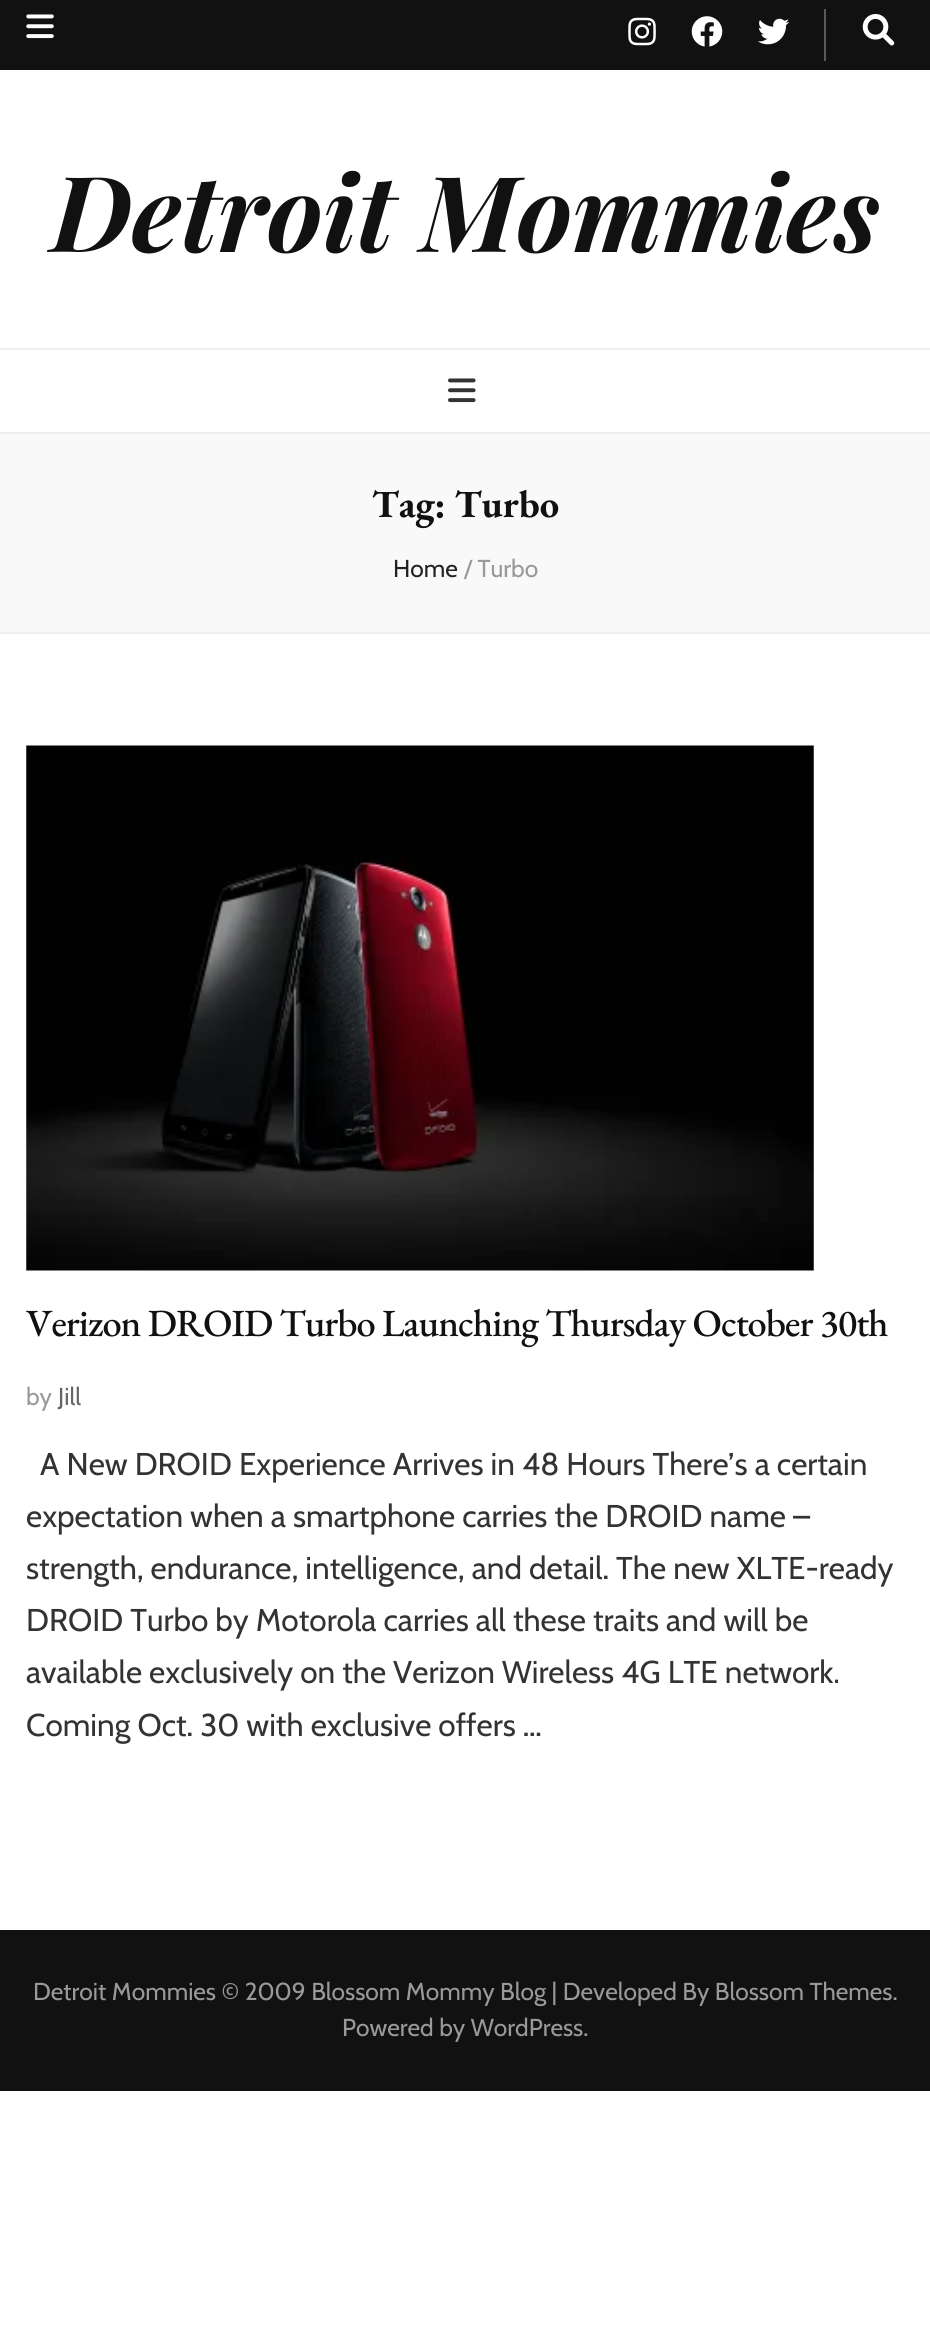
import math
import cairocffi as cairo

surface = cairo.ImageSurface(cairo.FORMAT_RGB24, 930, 2331)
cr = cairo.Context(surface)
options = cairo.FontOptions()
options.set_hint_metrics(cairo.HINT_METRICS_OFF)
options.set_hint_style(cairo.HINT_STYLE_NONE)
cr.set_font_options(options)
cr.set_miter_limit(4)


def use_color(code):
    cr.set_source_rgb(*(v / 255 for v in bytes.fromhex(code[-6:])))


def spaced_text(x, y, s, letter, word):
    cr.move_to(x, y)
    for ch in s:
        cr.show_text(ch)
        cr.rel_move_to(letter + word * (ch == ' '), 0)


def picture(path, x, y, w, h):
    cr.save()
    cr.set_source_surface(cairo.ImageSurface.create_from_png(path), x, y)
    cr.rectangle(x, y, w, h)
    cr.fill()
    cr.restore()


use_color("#ffffff")
cr.paint()
use_color("#111111")
cr.rectangle(0, 0, 930, 70)
cr.fill()
picture("img1.png", 26, 14, 28, 25)
use_color("#595959")
cr.rectangle(824, 9, 2, 52)
cr.fill()
picture("img2.png", 628, 17, 28, 29)
picture("img3.png", 691, 16, 32, 31)
picture("img4.png", 758, 18, 32, 27)
picture("img5.png", 862, 14, 33, 32)
cr.select_font_face("Playfair Display", cairo.FONT_SLANT_ITALIC, cairo.FONT_WEIGHT_BOLD)
cr.set_font_size(105)
use_color("#111111")
cr.move_to(51, 252)
cr.show_text("Detroit Mommies")
use_color("#eeeeee")
cr.rectangle(0, 348, 930, 2)
cr.fill()
cr.rectangle(0, 432, 930, 2)
cr.fill()
picture("img6.png", 448, 378, 28, 25)
use_color("#f9f9f9")
cr.rectangle(0, 434, 930, 198)
cr.fill()
use_color("#eeeeee")
cr.rectangle(0, 632, 930, 2)
cr.fill()
cr.select_font_face("EB Garamond", cairo.FONT_SLANT_NORMAL, cairo.FONT_WEIGHT_BOLD)
cr.set_font_size(38.5)
use_color("#111111")
cr.move_to(372, 517)
cr.show_text("Tag: Turbo")
cr.select_font_face("Cabin")
cr.set_font_size(24.5)
use_color("#222222")
cr.move_to(393, 577)
cr.show_text("Home")
use_color("#999999")
cr.move_to(464, 577)
cr.show_text("/ Turbo")
picture("img7.png", 26, 745, 788, 526)
cr.select_font_face("EB Garamond Medium")
cr.set_font_size(38.5)
use_color("#111111")
spaced_text(26, 1336, "Verizon DROID Turbo Launching Thursday October 30th", -0.95, 0)
cr.select_font_face("Cabin")
cr.set_font_size(24.5)
use_color("#999999")
cr.move_to(26, 1405)
cr.show_text("by")
use_color("#666666")
cr.move_to(58, 1405)
cr.show_text("Jill")
cr.set_font_size(31.5)
use_color("#333333")
cr.move_to(40, 1475)
cr.show_text("A New DROID Experience Arrives in 48 Hours There’s a certain")
cr.move_to(26, 1527)
cr.show_text("expectation when a smartphone carries the DROID name –")
cr.move_to(26, 1579)
cr.show_text("strength, endurance, intelligence, and detail. The new XLTE-ready")
cr.move_to(26, 1631)
cr.show_text("DROID Turbo by Motorola carries all these traits and will be")
cr.move_to(26, 1683)
cr.show_text("available exclusively on the Verizon Wireless 4G LTE network.")
cr.move_to(26, 1736)
cr.show_text("Coming Oct. 30 with exclusive offers …")
use_color("#111111")
cr.rectangle(0, 1930, 930, 161)
cr.fill()
cr.set_font_size(24.5)
use_color("#999999")
cr.move_to(33, 2000)
cr.show_text("Detroit Mommies © 2009 Blossom Mommy Blog | Developed By Blossom Themes.")
cr.move_to(342, 2036)
cr.show_text("Powered by WordPress.")
surface.write_to_png("result.png")
